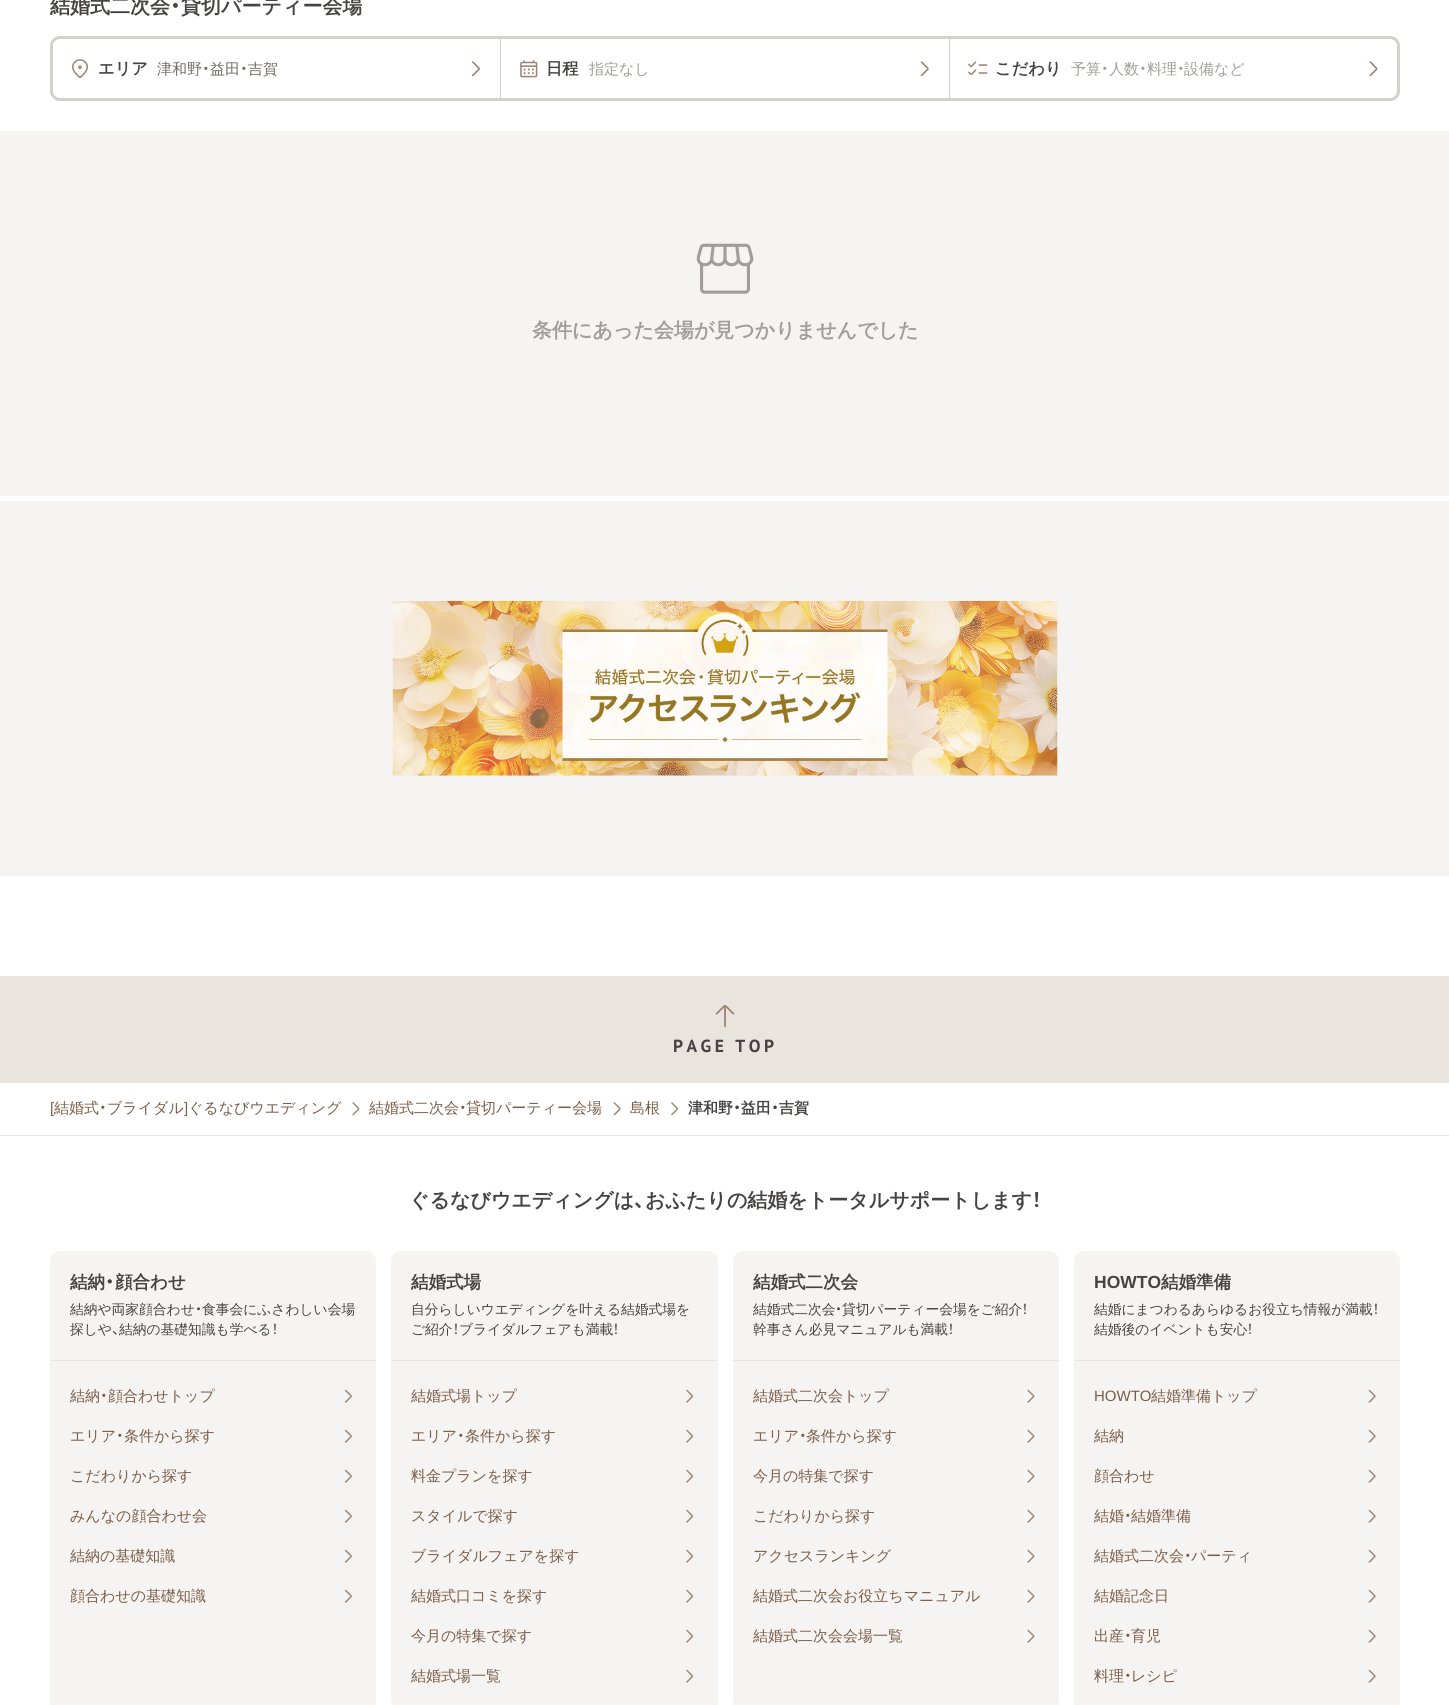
import math
import cairocffi as cairo

surface = cairo.ImageSurface(cairo.FORMAT_RGB24, 1449, 1705)
cr = cairo.Context(surface)
options = cairo.FontOptions()
options.set_hint_metrics(cairo.HINT_METRICS_OFF)
options.set_hint_style(cairo.HINT_STYLE_NONE)
cr.set_font_options(options)
cr.set_miter_limit(4)


def use_color(code):
    cr.set_source_rgb(*(v / 255 for v in bytes.fromhex(code[-6:])))


def spaced_text(x, y, s, letter, word):
    cr.move_to(x, y)
    for ch in s:
        cr.show_text(ch)
        cr.rel_move_to(letter + word * (ch == ' '), 0)


def round_rect(x, y, w, h, r):
    cr.new_sub_path()
    for i, (u, v) in enumerate([(x + w - r, y + h - r), (x + r, y + h - r), (x + r, y + r), (x + w - r, y + r)]):
        cr.arc(u, v, r, i * math.pi / 2, (i + 1) * math.pi / 2)
    cr.close_path()


def picture(path, x, y, w, h):
    cr.save()
    cr.set_source_surface(cairo.ImageSurface.create_from_png(path), x, y)
    cr.rectangle(x, y, w, h)
    cr.fill()
    cr.restore()


use_color("#ffffff")
cr.paint()
cr.select_font_face("WenQuanYi Zen Hei", cairo.FONT_SLANT_NORMAL, cairo.FONT_WEIGHT_BOLD)
cr.set_font_size(20)
use_color("#464443")
cr.move_to(50, 13)
cr.show_text("結婚式二次会")
cr.select_font_face("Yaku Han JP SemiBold")
cr.move_to(170, 13)
cr.show_text("・")
cr.select_font_face("WenQuanYi Zen Hei", cairo.FONT_SLANT_NORMAL, cairo.FONT_WEIGHT_BOLD)
cr.move_to(181, 13)
cr.show_text("貸切パーティー会場")
round_rect(51.5, 37.5, 1347, 62, 8.5)
use_color("#d4d0cd")
cr.set_line_width(3)
cr.stroke()
cr.rectangle(500, 39, 1, 60)
cr.fill()
picture("img1.png", 71, 59, 18, 20)
cr.set_font_size(16.25)
use_color("#464443")
cr.move_to(98, 74)
cr.show_text("エリア")
cr.select_font_face("WenQuanYi Zen Hei Medium")
cr.set_font_size(15)
use_color("#706a65")
cr.move_to(157, 74)
cr.show_text("津和野")
cr.select_font_face("Yaku Han JP")
cr.move_to(202, 74)
cr.show_text("・")
cr.select_font_face("WenQuanYi Zen Hei Medium")
cr.move_to(210, 74)
cr.show_text("益田")
cr.select_font_face("Yaku Han JP")
cr.move_to(240, 74)
cr.show_text("・")
cr.select_font_face("WenQuanYi Zen Hei Medium")
cr.move_to(248, 74)
cr.show_text("吉賀")
picture("img2.png", 472, 61, 8, 16)
use_color("#d4d0cd")
cr.rectangle(949, 39, 1, 60)
cr.fill()
picture("img3.png", 520, 60, 18, 18)
cr.select_font_face("WenQuanYi Zen Hei", cairo.FONT_SLANT_NORMAL, cairo.FONT_WEIGHT_BOLD)
cr.set_font_size(16.25)
use_color("#464443")
cr.move_to(546, 74)
cr.show_text("日程")
cr.save()
cr.rectangle(589, 58, 325, 22)
cr.clip()
cr.select_font_face("WenQuanYi Zen Hei Medium")
cr.set_font_size(15)
use_color("#a09d9a")
cr.move_to(589, 74)
cr.show_text("指定なし")
cr.restore()
picture("img4.png", 920, 61, 9, 16)
picture("img5.png", 968, 61, 20, 15)
cr.move_to(995, 74)
cr.show_text("こだわり")
cr.select_font_face("WenQuanYi Zen Hei Medium")
cr.set_font_size(15)
use_color("#a09d9a")
cr.move_to(1071, 74)
cr.show_text("予算")
cr.select_font_face("Yaku Han JP")
cr.move_to(1101, 74)
cr.show_text("・")
cr.select_font_face("WenQuanYi Zen Hei Medium")
cr.move_to(1109, 74)
cr.show_text("人数")
cr.select_font_face("Yaku Han JP")
cr.move_to(1139, 74)
cr.show_text("・")
cr.select_font_face("WenQuanYi Zen Hei Medium")
cr.move_to(1147, 74)
cr.show_text("料理")
cr.select_font_face("Yaku Han JP")
cr.move_to(1177, 74)
cr.show_text("・")
cr.select_font_face("WenQuanYi Zen Hei Medium")
cr.move_to(1184, 74)
cr.show_text("設備など")
picture("img6.png", 1369, 61, 9, 16)
use_color("#f5f4f3")
cr.rectangle(0, 131, 1449, 365)
cr.fill()
picture("img7.png", 696, 243, 58, 51)
cr.select_font_face("WenQuanYi Zen Hei", cairo.FONT_SLANT_NORMAL, cairo.FONT_WEIGHT_BOLD)
cr.set_font_size(20)
use_color("#a09d9a")
cr.move_to(532, 337)
cr.show_text("条件にあった会場が見つかりませんでした")
use_color("#f5f4f3")
cr.rectangle(0, 501, 1449, 375)
cr.fill()
picture("img8.png", 392, 600, 666, 176)
use_color("#eae4de")
cr.rectangle(0, 976, 1449, 107)
cr.fill()
picture("img9.png", 715, 1005, 20, 23)
cr.select_font_face("PT Sans", cairo.FONT_SLANT_NORMAL, cairo.FONT_WEIGHT_BOLD)
cr.set_font_size(17.5)
use_color("#464443")
spaced_text(673, 1052, "PAGE TOP", 3.5, 0)
cr.select_font_face("Liberation Sans")
cr.set_font_size(15)
use_color("#7b5d48")
cr.move_to(50, 1113)
cr.show_text("[")
cr.select_font_face("WenQuanYi Zen Hei Medium")
cr.move_to(54, 1113)
cr.show_text("結婚式")
cr.select_font_face("Yaku Han JP")
cr.move_to(99, 1113)
cr.show_text("・")
cr.select_font_face("WenQuanYi Zen Hei Medium")
cr.move_to(107, 1113)
cr.show_text("ブライダル")
cr.select_font_face("Liberation Sans")
cr.move_to(184, 1113)
cr.show_text("]")
cr.select_font_face("WenQuanYi Zen Hei Medium")
cr.move_to(188, 1113)
cr.show_text("ぐるなびウエディング")
picture("img10.png", 352, 1102, 8, 14)
cr.move_to(369, 1113)
cr.show_text("結婚式二次会")
cr.select_font_face("Yaku Han JP")
cr.move_to(459, 1113)
cr.show_text("・")
cr.select_font_face("WenQuanYi Zen Hei Medium")
cr.move_to(466, 1113)
cr.show_text("貸切パーティー会場")
picture("img11.png", 613, 1102, 8, 14)
cr.move_to(630, 1113)
cr.show_text("島根")
picture("img12.png", 671, 1102, 8, 14)
cr.select_font_face("WenQuanYi Zen Hei", cairo.FONT_SLANT_NORMAL, cairo.FONT_WEIGHT_BOLD)
use_color("#464443")
cr.move_to(688, 1113)
cr.show_text("津和野")
cr.select_font_face("Yaku Han JP SemiBold")
cr.move_to(733, 1113)
cr.show_text("・")
cr.select_font_face("WenQuanYi Zen Hei", cairo.FONT_SLANT_NORMAL, cairo.FONT_WEIGHT_BOLD)
cr.move_to(741, 1113)
cr.show_text("益田")
cr.select_font_face("Yaku Han JP SemiBold")
cr.move_to(771, 1113)
cr.show_text("・")
cr.select_font_face("WenQuanYi Zen Hei", cairo.FONT_SLANT_NORMAL, cairo.FONT_WEIGHT_BOLD)
cr.move_to(779, 1113)
cr.show_text("吉賀")
use_color("#e7e5e4")
cr.rectangle(0, 1135, 1449, 1)
cr.fill()
cr.set_font_size(20)
use_color("#464443")
cr.move_to(409, 1207)
cr.show_text("ぐるなびウエディングは")
cr.select_font_face("Yaku Han JP SemiBold")
cr.move_to(634, 1207)
cr.show_text("、")
cr.select_font_face("WenQuanYi Zen Hei", cairo.FONT_SLANT_NORMAL, cairo.FONT_WEIGHT_BOLD)
cr.move_to(645, 1207)
cr.show_text("おふたりの結婚をトータルサポートします")
cr.select_font_face("Yaku Han JP SemiBold")
cr.move_to(1032, 1207)
cr.show_text("！")
use_color("#f5f4f3")
round_rect(50, 1251, 326, 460, 10)
cr.fill()
use_color("#e7e5e4")
cr.rectangle(50, 1360, 326, 1)
cr.fill()
cr.select_font_face("WenQuanYi Zen Hei", cairo.FONT_SLANT_NORMAL, cairo.FONT_WEIGHT_BOLD)
cr.set_font_size(17.5)
use_color("#464443")
cr.move_to(70, 1288)
cr.show_text("結納")
cr.select_font_face("Yaku Han JP SemiBold")
cr.move_to(105, 1288)
cr.show_text("・")
cr.select_font_face("WenQuanYi Zen Hei", cairo.FONT_SLANT_NORMAL, cairo.FONT_WEIGHT_BOLD)
cr.move_to(115, 1288)
cr.show_text("顔合わせ")
cr.select_font_face("WenQuanYi Zen Hei Medium")
cr.set_font_size(13.75)
cr.move_to(70, 1314)
cr.show_text("結納や両家顔合わせ")
cr.select_font_face("Yaku Han JP")
cr.move_to(195, 1314)
cr.show_text("・")
cr.select_font_face("WenQuanYi Zen Hei Medium")
cr.move_to(202, 1314)
cr.show_text("食事会にふさわしい会場")
cr.move_to(70, 1334)
cr.show_text("探しや")
cr.select_font_face("Yaku Han JP")
cr.move_to(112, 1334)
cr.show_text("、")
cr.select_font_face("WenQuanYi Zen Hei Medium")
cr.move_to(119, 1334)
cr.show_text("結納の基礎知識も学べる")
cr.select_font_face("Yaku Han JP")
cr.move_to(272, 1334)
cr.show_text("！")
cr.select_font_face("WenQuanYi Zen Hei Medium")
cr.set_font_size(15)
use_color("#7b5d48")
cr.move_to(70, 1401)
cr.show_text("結納")
cr.select_font_face("Yaku Han JP")
cr.move_to(100, 1401)
cr.show_text("・")
cr.select_font_face("WenQuanYi Zen Hei Medium")
cr.move_to(108, 1401)
cr.show_text("顔合わせトップ")
picture("img13.png", 344, 1389, 8, 14)
cr.move_to(70, 1441)
cr.show_text("エリア")
cr.select_font_face("Yaku Han JP")
cr.move_to(116, 1441)
cr.show_text("・")
cr.select_font_face("WenQuanYi Zen Hei Medium")
cr.move_to(124, 1441)
cr.show_text("条件から探す")
picture("img13.png", 344, 1429, 8, 14)
cr.move_to(70, 1481)
cr.show_text("こだわりから探す")
picture("img13.png", 344, 1469, 8, 14)
cr.move_to(70, 1521)
cr.show_text("みんなの顔合わせ会")
picture("img13.png", 344, 1509, 8, 14)
cr.move_to(70, 1561)
cr.show_text("結納の基礎知識")
picture("img13.png", 344, 1549, 8, 14)
cr.move_to(70, 1601)
cr.show_text("顔合わせの基礎知識")
picture("img13.png", 344, 1589, 8, 14)
use_color("#f5f4f3")
round_rect(391, 1251, 327, 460, 10)
cr.fill()
use_color("#e7e5e4")
cr.rectangle(391, 1360, 327, 1)
cr.fill()
cr.select_font_face("WenQuanYi Zen Hei", cairo.FONT_SLANT_NORMAL, cairo.FONT_WEIGHT_BOLD)
cr.set_font_size(17.5)
use_color("#464443")
cr.move_to(411, 1288)
cr.show_text("結婚式場")
cr.select_font_face("WenQuanYi Zen Hei Medium")
cr.set_font_size(13.75)
cr.move_to(411, 1314)
cr.show_text("自分らしいウエディングを叶える結婚式場を")
cr.move_to(411, 1334)
cr.show_text("ご紹介")
cr.select_font_face("Yaku Han JP")
cr.move_to(453, 1334)
cr.show_text("！")
cr.select_font_face("WenQuanYi Zen Hei Medium")
cr.move_to(459, 1334)
cr.show_text("ブライダルフェアも満載")
cr.select_font_face("Yaku Han JP")
cr.move_to(613, 1334)
cr.show_text("！")
cr.select_font_face("WenQuanYi Zen Hei Medium")
cr.set_font_size(15)
use_color("#7b5d48")
cr.move_to(411, 1401)
cr.show_text("結婚式場トップ")
picture("img14.png", 686, 1389, 8, 14)
cr.move_to(411, 1441)
cr.show_text("エリア")
cr.select_font_face("Yaku Han JP")
cr.move_to(457, 1441)
cr.show_text("・")
cr.select_font_face("WenQuanYi Zen Hei Medium")
cr.move_to(465, 1441)
cr.show_text("条件から探す")
picture("img14.png", 686, 1429, 8, 14)
cr.move_to(411, 1481)
cr.show_text("料金プランを探す")
picture("img14.png", 686, 1469, 8, 14)
cr.move_to(411, 1521)
cr.show_text("スタイルで探す")
picture("img14.png", 686, 1509, 8, 14)
cr.move_to(411, 1561)
cr.show_text("ブライダルフェアを探す")
picture("img14.png", 686, 1549, 8, 14)
cr.move_to(411, 1601)
cr.show_text("結婚式口コミを探す")
picture("img14.png", 686, 1589, 8, 14)
cr.move_to(411, 1641)
cr.show_text("今月の特集で探す")
picture("img14.png", 686, 1629, 8, 14)
cr.move_to(411, 1681)
cr.show_text("結婚式場一覧")
picture("img14.png", 686, 1669, 8, 14)
use_color("#f5f4f3")
round_rect(733, 1251, 326, 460, 10)
cr.fill()
use_color("#e7e5e4")
cr.rectangle(733, 1360, 326, 1)
cr.fill()
cr.select_font_face("WenQuanYi Zen Hei", cairo.FONT_SLANT_NORMAL, cairo.FONT_WEIGHT_BOLD)
cr.set_font_size(17.5)
use_color("#464443")
cr.move_to(753, 1288)
cr.show_text("結婚式二次会")
cr.select_font_face("WenQuanYi Zen Hei Medium")
cr.set_font_size(13.75)
cr.move_to(753, 1314)
cr.show_text("結婚式二次会")
cr.select_font_face("Yaku Han JP")
cr.move_to(835, 1314)
cr.show_text("・")
cr.select_font_face("WenQuanYi Zen Hei Medium")
cr.move_to(842, 1314)
cr.show_text("貸切パーティー会場をご紹介")
cr.select_font_face("Yaku Han JP")
cr.move_to(1022, 1314)
cr.show_text("！")
cr.select_font_face("WenQuanYi Zen Hei Medium")
cr.move_to(753, 1334)
cr.show_text("幹事さん必見マニュアルも満載")
cr.select_font_face("Yaku Han JP")
cr.move_to(948, 1334)
cr.show_text("！")
cr.select_font_face("WenQuanYi Zen Hei Medium")
cr.set_font_size(15)
use_color("#7b5d48")
cr.move_to(753, 1401)
cr.show_text("結婚式二次会トップ")
picture("img15.png", 1027, 1389, 8, 14)
cr.move_to(753, 1441)
cr.show_text("エリア")
cr.select_font_face("Yaku Han JP")
cr.move_to(799, 1441)
cr.show_text("・")
cr.select_font_face("WenQuanYi Zen Hei Medium")
cr.move_to(806, 1441)
cr.show_text("条件から探す")
picture("img15.png", 1027, 1429, 8, 14)
cr.move_to(753, 1481)
cr.show_text("今月の特集で探す")
picture("img15.png", 1027, 1469, 8, 14)
cr.move_to(753, 1521)
cr.show_text("こだわりから探す")
picture("img15.png", 1027, 1509, 8, 14)
cr.move_to(753, 1561)
cr.show_text("アクセスランキング")
picture("img15.png", 1027, 1549, 8, 14)
cr.move_to(753, 1601)
cr.show_text("結婚式二次会お役立ちマニュアル")
picture("img15.png", 1027, 1589, 8, 14)
cr.move_to(753, 1641)
cr.show_text("結婚式二次会会場一覧")
picture("img15.png", 1027, 1629, 8, 14)
use_color("#f5f4f3")
round_rect(1074, 1251, 326, 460, 10)
cr.fill()
use_color("#e7e5e4")
cr.rectangle(1074, 1360, 326, 1)
cr.fill()
cr.select_font_face("Liberation Sans", cairo.FONT_SLANT_NORMAL, cairo.FONT_WEIGHT_BOLD)
cr.set_font_size(17.5)
use_color("#464443")
cr.move_to(1094, 1288)
cr.show_text("HOWTO")
cr.select_font_face("WenQuanYi Zen Hei", cairo.FONT_SLANT_NORMAL, cairo.FONT_WEIGHT_BOLD)
cr.move_to(1161, 1288)
cr.show_text("結婚準備")
cr.select_font_face("WenQuanYi Zen Hei Medium")
cr.set_font_size(13.75)
cr.move_to(1094, 1314)
cr.show_text("結婚にまつわるあらゆるお役立ち情報が満載")
cr.select_font_face("Yaku Han JP")
cr.move_to(1373, 1314)
cr.show_text("！")
cr.select_font_face("WenQuanYi Zen Hei Medium")
cr.move_to(1094, 1334)
cr.show_text("結婚後のイベントも安心")
cr.select_font_face("Yaku Han JP")
cr.move_to(1247, 1334)
cr.show_text("！")
cr.select_font_face("Liberation Sans")
cr.set_font_size(15)
use_color("#7b5d48")
cr.move_to(1094, 1401)
cr.show_text("HOWTO")
cr.select_font_face("WenQuanYi Zen Hei Medium")
cr.move_to(1151, 1401)
cr.show_text("結婚準備トップ")
picture("img16.png", 1368, 1389, 8, 14)
cr.move_to(1094, 1441)
cr.show_text("結納")
picture("img16.png", 1368, 1429, 8, 14)
cr.move_to(1094, 1481)
cr.show_text("顔合わせ")
picture("img16.png", 1368, 1469, 8, 14)
cr.move_to(1094, 1521)
cr.show_text("結婚")
cr.select_font_face("Yaku Han JP")
cr.move_to(1124, 1521)
cr.show_text("・")
cr.select_font_face("WenQuanYi Zen Hei Medium")
cr.move_to(1131, 1521)
cr.show_text("結婚準備")
picture("img16.png", 1368, 1509, 8, 14)
cr.move_to(1094, 1561)
cr.show_text("結婚式二次会")
cr.select_font_face("Yaku Han JP")
cr.move_to(1184, 1561)
cr.show_text("・")
cr.select_font_face("WenQuanYi Zen Hei Medium")
cr.move_to(1191, 1561)
cr.show_text("パーティ")
picture("img16.png", 1368, 1549, 8, 14)
cr.move_to(1094, 1601)
cr.show_text("結婚記念日")
picture("img16.png", 1368, 1589, 8, 14)
cr.move_to(1094, 1641)
cr.show_text("出産")
cr.select_font_face("Yaku Han JP")
cr.move_to(1124, 1641)
cr.show_text("・")
cr.select_font_face("WenQuanYi Zen Hei Medium")
cr.move_to(1131, 1641)
cr.show_text("育児")
picture("img16.png", 1368, 1629, 8, 14)
cr.move_to(1094, 1681)
cr.show_text("料理")
cr.select_font_face("Yaku Han JP")
cr.move_to(1124, 1681)
cr.show_text("・")
cr.select_font_face("WenQuanYi Zen Hei Medium")
cr.move_to(1131, 1681)
cr.show_text("レシピ")
picture("img16.png", 1368, 1669, 8, 14)
surface.write_to_png("result.png")
